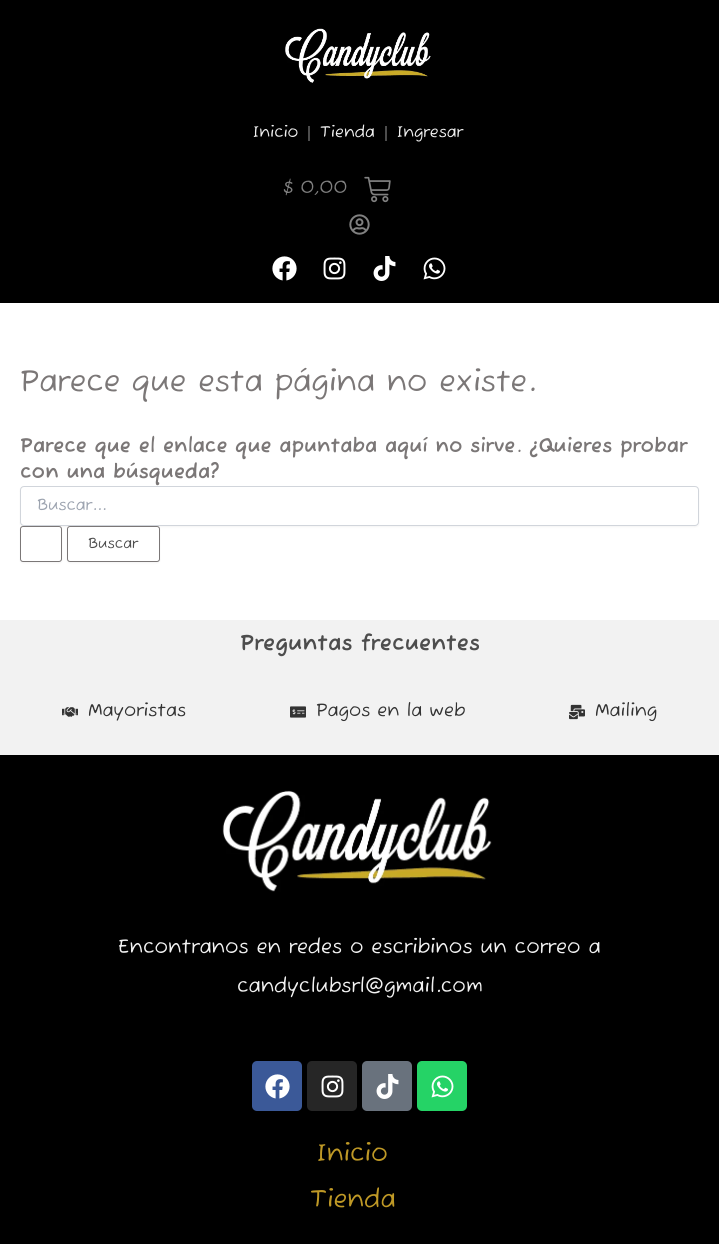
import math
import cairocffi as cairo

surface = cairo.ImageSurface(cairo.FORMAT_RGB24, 719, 1244)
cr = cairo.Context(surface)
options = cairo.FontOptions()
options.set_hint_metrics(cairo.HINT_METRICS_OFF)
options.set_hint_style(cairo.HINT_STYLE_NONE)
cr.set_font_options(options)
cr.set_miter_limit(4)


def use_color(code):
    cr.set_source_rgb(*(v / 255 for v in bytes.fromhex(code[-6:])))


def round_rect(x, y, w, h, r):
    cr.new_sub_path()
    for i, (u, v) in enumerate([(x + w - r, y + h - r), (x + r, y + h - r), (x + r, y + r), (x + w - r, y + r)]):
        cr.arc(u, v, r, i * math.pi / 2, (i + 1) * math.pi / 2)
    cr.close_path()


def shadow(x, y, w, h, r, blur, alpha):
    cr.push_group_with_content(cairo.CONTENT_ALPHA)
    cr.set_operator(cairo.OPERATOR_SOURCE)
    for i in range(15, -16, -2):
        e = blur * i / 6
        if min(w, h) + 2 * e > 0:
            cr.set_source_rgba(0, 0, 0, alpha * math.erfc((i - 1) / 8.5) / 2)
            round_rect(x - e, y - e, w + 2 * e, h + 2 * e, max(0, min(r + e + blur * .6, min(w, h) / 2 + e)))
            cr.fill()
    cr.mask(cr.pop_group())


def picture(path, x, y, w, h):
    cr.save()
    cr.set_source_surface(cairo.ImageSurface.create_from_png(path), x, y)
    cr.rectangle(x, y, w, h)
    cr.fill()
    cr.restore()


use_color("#ffffff")
cr.paint()
use_color("#000000")
cr.rectangle(0, 0, 719, 303)
cr.fill()
picture("img1.png", 285, 28, 146, 55)
cr.select_font_face("Fuzzy Bubbles")
cr.set_font_size(16)
use_color("#f2f2f2")
cr.move_to(253, 137)
cr.show_text("Inicio")
use_color("#4d4d4d")
cr.rectangle(308, 126, 2, 15)
cr.fill()
use_color("#f2f2f2")
cr.move_to(320, 137)
cr.show_text("Tienda")
use_color("#4d4d4d")
cr.rectangle(385, 126, 2, 15)
cr.fill()
use_color("#f2f2f2")
cr.move_to(397, 137)
cr.show_text("Ingresar")
cr.set_font_size(18)
use_color("#808080")
cr.move_to(283, 193)
cr.show_text("$ 0,00")
picture("img2.png", 364, 176, 27, 27)
picture("img3.png", 349, 214, 21, 21)
picture("img4.png", 272, 256, 25, 25)
picture("img5.png", 323, 257, 23, 23)
picture("img6.png", 373, 256, 23, 25)
picture("img7.png", 423, 257, 23, 23)
cr.set_font_size(30)
use_color("#7b7777")
cr.move_to(20, 391)
cr.show_text("Parece que esta página no existe.")
cr.select_font_face("Fuzzy Bubbles", cairo.FONT_SLANT_NORMAL, cairo.FONT_WEIGHT_BOLD)
cr.set_font_size(20)
cr.move_to(20, 452)
cr.show_text("Parece que el enlace que apuntaba aquí no sirve. ¿Quieres probar")
cr.move_to(20, 478)
cr.show_text("con una búsqueda?")
use_color("#000000")
shadow(20, 487, 679, 40, 4, 1, 0.05)
use_color("#ffffff")
round_rect(20.5, 486.5, 678, 39, 3.5)
cr.fill_preserve()
use_color("#d1d5db")
cr.set_line_width(1)
cr.stroke()
cr.select_font_face("Fuzzy Bubbles")
cr.set_font_size(16)
use_color("#9ca3af")
cr.move_to(37, 510)
cr.show_text("Buscar...")
use_color("#000000")
shadow(20, 527, 42, 36, 3, 1, 0.05)
use_color("#ffffff")
round_rect(20.5, 526.5, 41, 35, 2.5)
cr.fill_preserve()
use_color("#7b7777")
cr.stroke()
use_color("#000000")
shadow(67, 527, 93, 36, 3, 1, 0.05)
use_color("#ffffff")
round_rect(67.5, 526.5, 92, 35, 2.5)
cr.fill_preserve()
use_color("#7b7777")
cr.stroke()
cr.set_font_size(14.5)
use_color("#4d4d4d")
cr.move_to(88, 548)
cr.show_text("Buscar")
use_color("#f2f2f2")
cr.rectangle(0, 620, 719, 135)
cr.fill()
cr.select_font_face("Fuzzy Bubbles", cairo.FONT_SLANT_NORMAL, cairo.FONT_WEIGHT_BOLD)
cr.set_font_size(22)
use_color("#4d4d4d")
cr.move_to(240, 650)
cr.show_text("Preguntas frecuentes")
picture("img8.png", 62, 707, 16, 10)
cr.select_font_face("Fuzzy Bubbles")
cr.set_font_size(18)
use_color("#333333")
cr.move_to(88, 716)
cr.show_text("Mayoristas")
picture("img9.png", 290, 706, 16, 12)
cr.move_to(316, 716)
cr.show_text("Pagos en la web")
picture("img10.png", 569, 704, 16, 16)
cr.move_to(595, 716)
cr.show_text("Mailing")
use_color("#000000")
cr.rectangle(0, 755, 719, 489)
cr.fill()
picture("img11.png", 222, 790, 270, 102)
cr.set_font_size(20)
use_color("#f2f2f2")
cr.move_to(118, 953)
cr.show_text("Encontranos en redes o escribinos un correo a")
cr.move_to(237, 992)
cr.show_text("candyclubsrl@gmail.com")
use_color("#3b5998")
round_rect(252, 1061, 50, 50, 5)
cr.fill()
picture("img12.png", 265, 1074, 25, 25)
use_color("#262626")
round_rect(307, 1061, 50, 50, 5)
cr.fill()
picture("img13.png", 321, 1075, 23, 23)
use_color("#69727d")
round_rect(362, 1061, 50, 50, 5)
cr.fill()
picture("img14.png", 376, 1074, 23, 25)
use_color("#25d366")
round_rect(417, 1061, 50, 50, 5)
cr.fill()
picture("img15.png", 431, 1075, 23, 23)
cr.set_font_size(25)
use_color("#bf9926")
cr.move_to(317, 1161)
cr.show_text("Inicio")
cr.move_to(310, 1207)
cr.show_text("Tienda")
surface.write_to_png("result.png")
